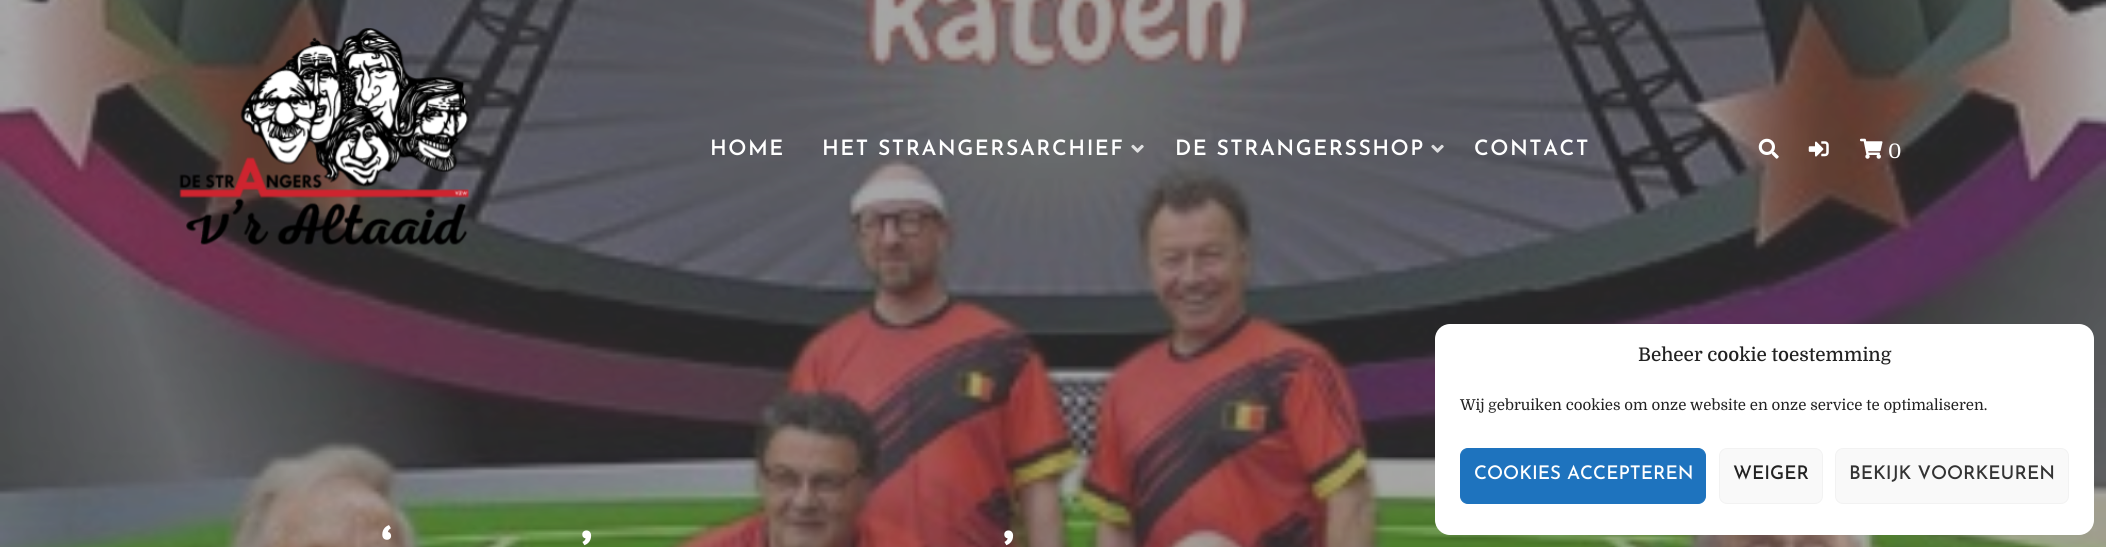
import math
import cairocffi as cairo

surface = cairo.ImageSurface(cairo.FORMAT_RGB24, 2106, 547)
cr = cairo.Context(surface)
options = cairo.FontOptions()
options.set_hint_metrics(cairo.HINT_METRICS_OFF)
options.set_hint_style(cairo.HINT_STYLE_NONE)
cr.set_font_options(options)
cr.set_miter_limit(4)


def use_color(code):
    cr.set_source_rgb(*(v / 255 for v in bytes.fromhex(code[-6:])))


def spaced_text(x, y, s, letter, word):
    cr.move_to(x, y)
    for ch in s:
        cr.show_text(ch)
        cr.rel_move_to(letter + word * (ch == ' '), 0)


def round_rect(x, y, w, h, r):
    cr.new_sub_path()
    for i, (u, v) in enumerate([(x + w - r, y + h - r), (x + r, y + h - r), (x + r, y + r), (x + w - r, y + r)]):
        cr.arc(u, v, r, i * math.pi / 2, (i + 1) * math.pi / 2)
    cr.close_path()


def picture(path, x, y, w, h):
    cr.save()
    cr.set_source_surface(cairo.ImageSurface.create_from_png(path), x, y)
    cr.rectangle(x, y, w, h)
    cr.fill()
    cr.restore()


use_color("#ffffff")
cr.paint()
picture("img7.png", 0, 0, 2106, 547)
picture("img1.png", 179, 28, 291, 218)
cr.select_font_face("Josefin Sans SemiBold")
cr.set_font_size(21.25)
use_color("#ffffff")
spaced_text(710, 155, "HOME", 1.5, 0)
spaced_text(822, 155, "HET STRANGERSARCHIEF", 1.5, 0)
picture("img2.png", 1131, 144, 13, 9)
spaced_text(1175, 155, "DE STRANGERSSHOP", 1.5, 0)
picture("img3.png", 1431, 144, 13, 9)
spaced_text(1474, 155, "CONTACT", 1.5, 0)
picture("img4.png", 1758, 138, 21, 21)
picture("img5.png", 1808, 141, 21, 16)
picture("img6.png", 1860, 138, 23, 21)
cr.select_font_face("Domine")
cr.set_font_size(20)
cr.move_to(1888, 158)
cr.show_text("0")
cr.select_font_face("PT Sans", cairo.FONT_SLANT_NORMAL, cairo.FONT_WEIGHT_BOLD)
cr.set_font_size(60)
cr.move_to(380, 573)
cr.show_text("‘")
cr.move_to(580, 573)
cr.show_text("’")
cr.move_to(1002, 573)
cr.show_text("’")
round_rect(1435, 324, 659, 211, 15)
cr.fill()
cr.select_font_face("Domine Medium")
cr.set_font_size(18.75)
use_color("#222222")
cr.move_to(1638, 361)
cr.show_text("Beheer cookie toestemming")
cr.select_font_face("Domine")
cr.set_font_size(15)
cr.move_to(1460, 410)
cr.show_text("Wij gebruiken cookies om onze website en onze service te optimaliseren.")
use_color("#1e73be")
round_rect(1460.5, 448.5, 245, 55, 7.5)
cr.fill_preserve()
cr.set_line_width(1)
cr.stroke()
cr.select_font_face("Josefin Sans Medium")
cr.set_font_size(18.75)
use_color("#ffffff")
cr.move_to(1474, 479)
cr.show_text("COOKIES ACCEPTEREN")
use_color("#f9f9f9")
round_rect(1719.5, 448.5, 103, 55, 7.5)
cr.fill_preserve()
use_color("#f2f2f2")
cr.stroke()
use_color("#222222")
cr.move_to(1733, 479)
cr.show_text("WEIGER")
use_color("#f9f9f9")
round_rect(1835.5, 448.5, 233, 55, 7.5)
cr.fill_preserve()
use_color("#f2f2f2")
cr.stroke()
use_color("#333333")
cr.move_to(1849, 479)
cr.show_text("BEKIJK VOORKEUREN")
surface.write_to_png("result.png")
